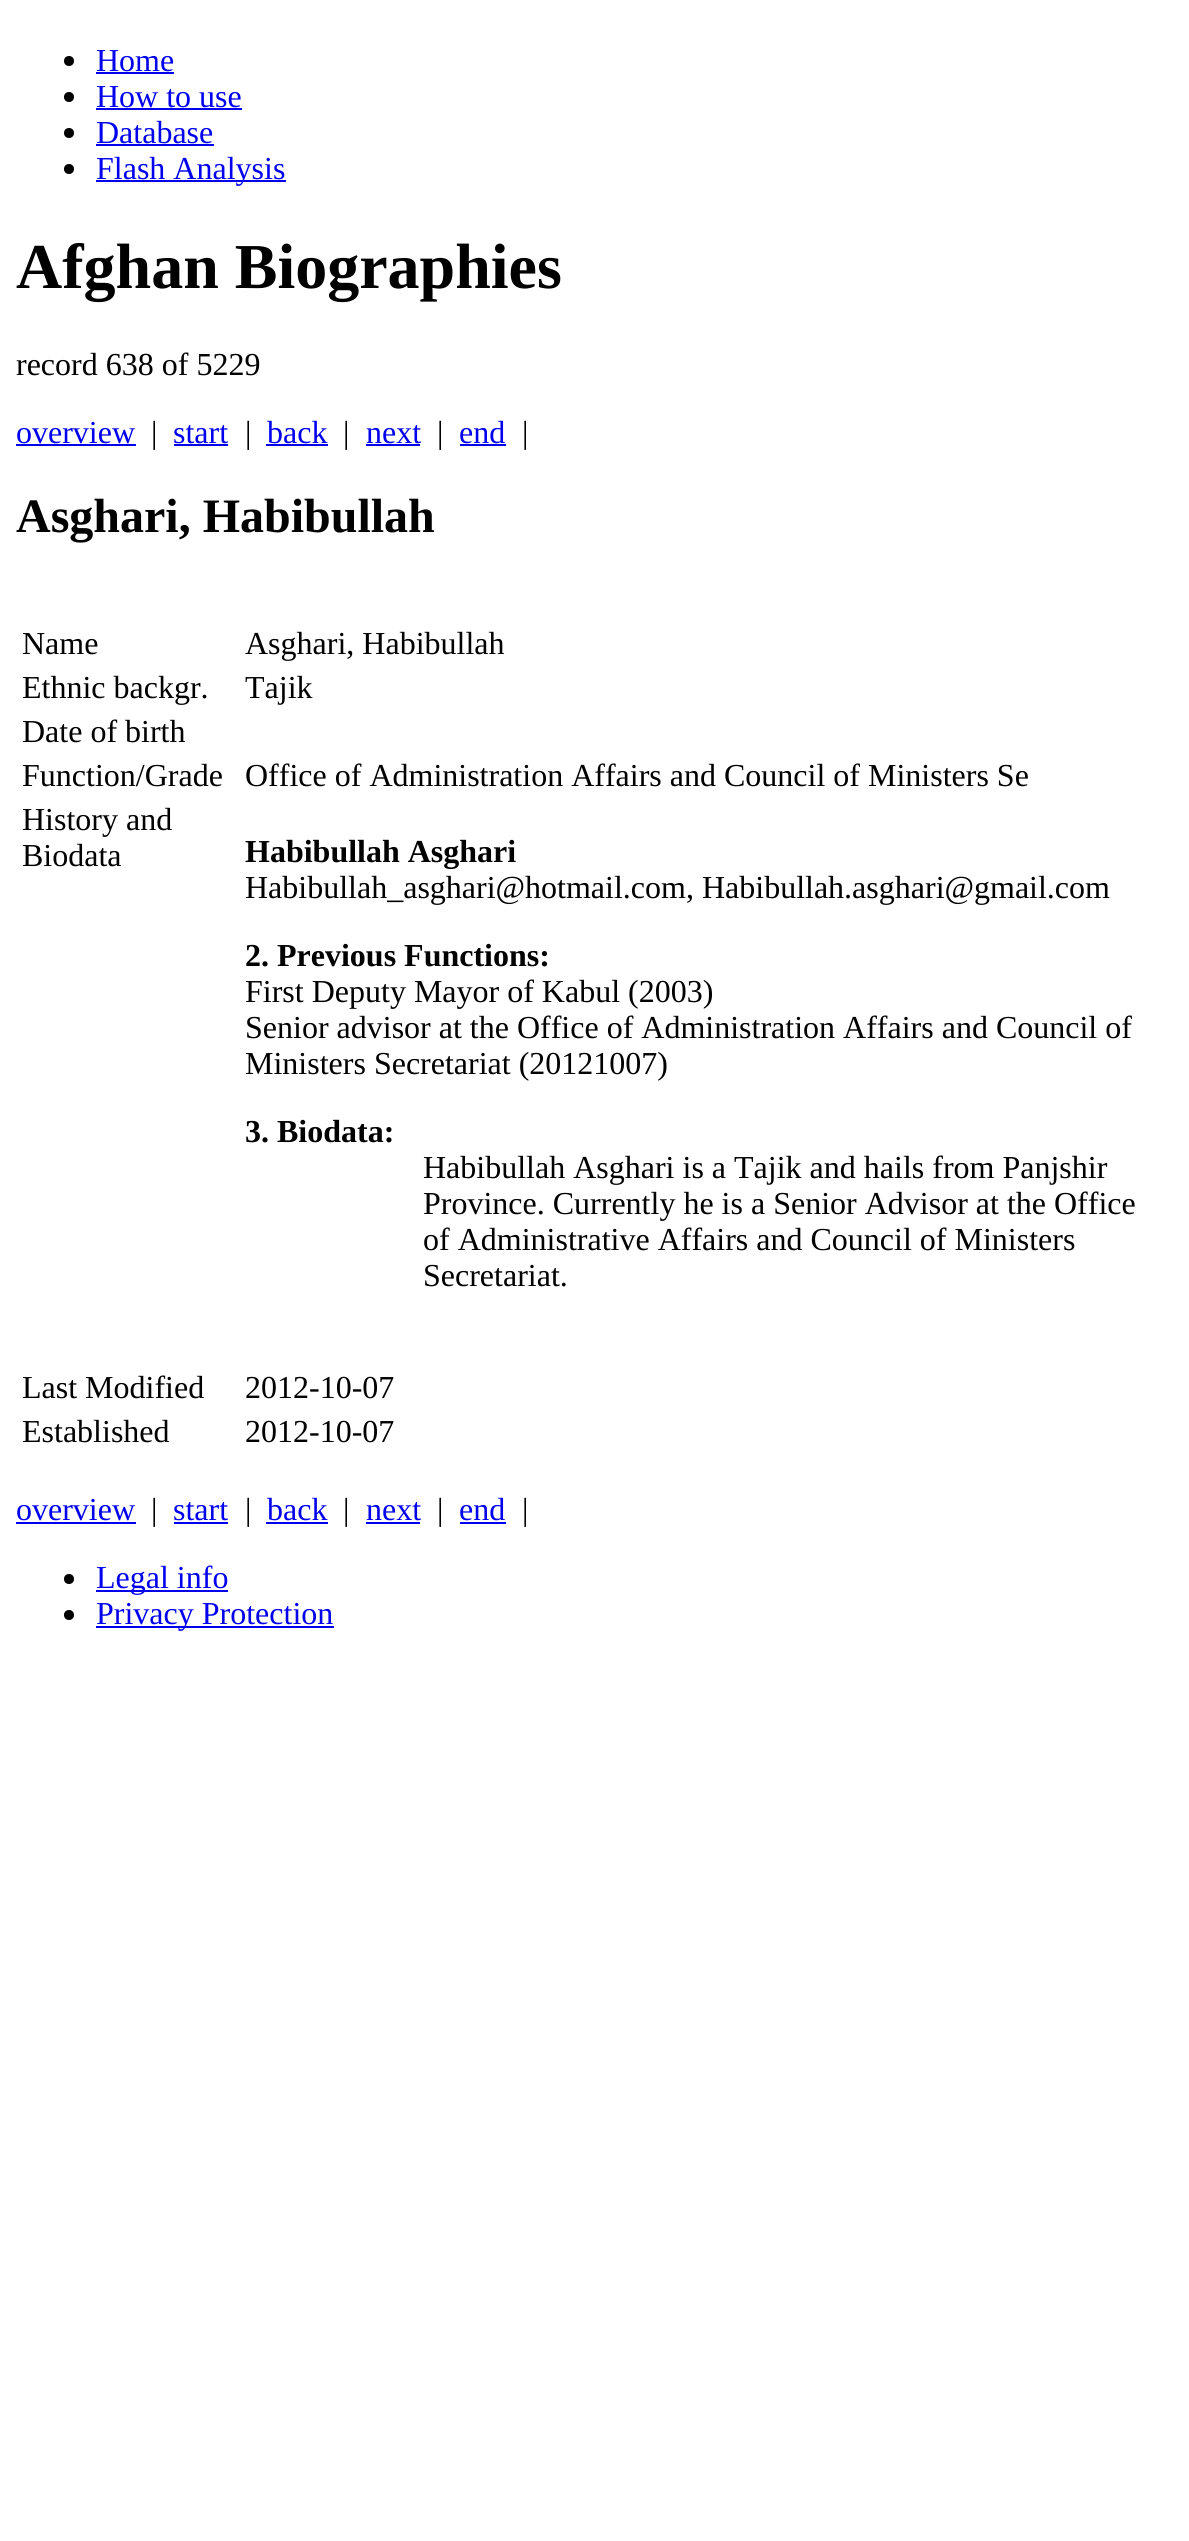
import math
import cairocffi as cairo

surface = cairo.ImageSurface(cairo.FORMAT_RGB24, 1189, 2541)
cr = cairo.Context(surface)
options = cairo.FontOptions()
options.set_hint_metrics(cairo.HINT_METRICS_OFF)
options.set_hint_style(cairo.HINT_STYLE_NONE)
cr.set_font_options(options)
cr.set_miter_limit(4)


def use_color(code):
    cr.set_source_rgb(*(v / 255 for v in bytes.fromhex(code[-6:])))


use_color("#ffffff")
cr.paint()
use_color("#000000")
cr.arc(69, 61, 5, 0, 2 * math.pi)
cr.fill()
cr.select_font_face("Liberation Serif")
cr.set_font_size(32)
use_color("#0000ee")
cr.move_to(96, 71)
cr.show_text("Home")
cr.rectangle(96, 72, 78, 2)
cr.fill()
use_color("#000000")
cr.arc(69, 97, 5, 0, 2 * math.pi)
cr.fill()
use_color("#0000ee")
cr.move_to(96, 107)
cr.show_text("How to use")
cr.rectangle(96, 108, 146, 2)
cr.fill()
use_color("#000000")
cr.arc(69, 133, 5, 0, 2 * math.pi)
cr.fill()
use_color("#0000ee")
cr.move_to(96, 143)
cr.show_text("Database")
cr.rectangle(96, 144, 118, 2)
cr.fill()
use_color("#000000")
cr.arc(69, 169, 5, 0, 2 * math.pi)
cr.fill()
use_color("#0000ee")
cr.rectangle(96, 180, 190, 2)
cr.fill()
cr.move_to(96, 179)
cr.show_text("Flash Analysis")
cr.select_font_face("Liberation Serif", cairo.FONT_SLANT_NORMAL, cairo.FONT_WEIGHT_BOLD)
cr.set_font_size(64)
use_color("#000000")
cr.move_to(16, 288)
cr.show_text("Afghan Biographies")
cr.select_font_face("Liberation Serif")
cr.set_font_size(32)
cr.move_to(16, 375)
cr.show_text("record 638 of 5229")
use_color("#0000ee")
cr.move_to(16, 443)
cr.show_text("overview")
cr.rectangle(16, 444, 120, 2)
cr.fill()
use_color("#000000")
cr.move_to(151, 443)
cr.show_text("|")
use_color("#0000ee")
cr.move_to(173, 443)
cr.show_text("start")
cr.rectangle(174, 444, 54, 2)
cr.fill()
use_color("#000000")
cr.move_to(245, 443)
cr.show_text("|")
use_color("#0000ee")
cr.move_to(267, 443)
cr.show_text("back")
cr.rectangle(266, 444, 62, 2)
cr.fill()
use_color("#000000")
cr.move_to(343, 443)
cr.show_text("|")
use_color("#0000ee")
cr.move_to(366, 443)
cr.show_text("next")
cr.rectangle(366, 444, 54, 2)
cr.fill()
use_color("#000000")
cr.move_to(437, 443)
cr.show_text("|")
use_color("#0000ee")
cr.move_to(459, 443)
cr.show_text("end")
cr.rectangle(460, 444, 46, 2)
cr.fill()
use_color("#000000")
cr.move_to(522, 443)
cr.show_text("|")
cr.select_font_face("Liberation Serif", cairo.FONT_SLANT_NORMAL, cairo.FONT_WEIGHT_BOLD)
cr.set_font_size(48)
cr.move_to(16, 532)
cr.show_text("Asghari, Habibullah")
cr.select_font_face("Liberation Serif")
cr.set_font_size(32)
cr.move_to(22, 654)
cr.show_text("Name")
cr.move_to(245, 654)
cr.show_text("Asghari, Habibullah")
cr.move_to(22, 698)
cr.show_text("Ethnic backgr.")
cr.move_to(245, 698)
cr.show_text("Tajik")
cr.move_to(22, 742)
cr.show_text("Date of birth")
cr.move_to(22, 786)
cr.show_text("Function/Grade")
cr.move_to(245, 786)
cr.show_text("Office of Administration Affairs and Council of Ministers Se")
cr.move_to(22, 830)
cr.show_text("History and")
cr.move_to(22, 866)
cr.show_text("Biodata")
cr.select_font_face("Liberation Serif", cairo.FONT_SLANT_NORMAL, cairo.FONT_WEIGHT_BOLD)
cr.move_to(245, 862)
cr.show_text("Habibullah Asghari")
cr.select_font_face("Liberation Serif")
cr.move_to(245, 898)
cr.show_text("Habibullah_asghari@hotmail.com, Habibullah.asghari@gmail.com")
cr.select_font_face("Liberation Serif", cairo.FONT_SLANT_NORMAL, cairo.FONT_WEIGHT_BOLD)
cr.move_to(245, 966)
cr.show_text("2. Previous Functions:")
cr.select_font_face("Liberation Serif")
cr.move_to(245, 1002)
cr.show_text("First Deputy Mayor of Kabul (2003)")
cr.move_to(245, 1038)
cr.show_text("Senior advisor at the Office of Administration Affairs and Council of")
cr.move_to(245, 1074)
cr.show_text("Ministers Secretariat (20121007)")
cr.select_font_face("Liberation Serif", cairo.FONT_SLANT_NORMAL, cairo.FONT_WEIGHT_BOLD)
cr.move_to(245, 1142)
cr.show_text("3. Biodata:")
cr.select_font_face("Liberation Serif")
cr.move_to(423, 1178)
cr.show_text("Habibullah Asghari is a Tajik and hails from Panjshir")
cr.move_to(423, 1214)
cr.show_text("Province. Currently he is a Senior Advisor at the Office")
cr.move_to(423, 1250)
cr.show_text("of Administrative Affairs and Council of Ministers")
cr.move_to(423, 1286)
cr.show_text("Secretariat.")
cr.move_to(22, 1398)
cr.show_text("Last Modified")
cr.move_to(245, 1398)
cr.show_text("2012-10-07")
cr.move_to(22, 1442)
cr.show_text("Established")
cr.move_to(245, 1442)
cr.show_text("2012-10-07")
use_color("#0000ee")
cr.move_to(16, 1520)
cr.show_text("overview")
cr.rectangle(16, 1522, 120, 2)
cr.fill()
use_color("#000000")
cr.move_to(151, 1520)
cr.show_text("|")
use_color("#0000ee")
cr.move_to(173, 1520)
cr.show_text("start")
cr.rectangle(174, 1522, 54, 2)
cr.fill()
use_color("#000000")
cr.move_to(245, 1520)
cr.show_text("|")
use_color("#0000ee")
cr.move_to(267, 1520)
cr.show_text("back")
cr.rectangle(266, 1522, 62, 2)
cr.fill()
use_color("#000000")
cr.move_to(343, 1520)
cr.show_text("|")
use_color("#0000ee")
cr.move_to(366, 1520)
cr.show_text("next")
cr.rectangle(366, 1522, 54, 2)
cr.fill()
use_color("#000000")
cr.move_to(437, 1520)
cr.show_text("|")
use_color("#0000ee")
cr.move_to(459, 1520)
cr.show_text("end")
cr.rectangle(460, 1522, 46, 2)
cr.fill()
use_color("#000000")
cr.move_to(522, 1520)
cr.show_text("|")
cr.new_path()
cr.arc(69, 1579, 5, 0, 2 * math.pi)
cr.fill()
use_color("#0000ee")
cr.rectangle(96, 1590, 132, 2)
cr.fill()
cr.move_to(96, 1588)
cr.show_text("Legal info")
use_color("#000000")
cr.new_path()
cr.arc(69, 1615, 5, 0, 2 * math.pi)
cr.fill()
use_color("#0000ee")
cr.rectangle(96, 1626, 238, 2)
cr.fill()
cr.move_to(96, 1624)
cr.show_text("Privacy Protection")
surface.write_to_png("result.png")
